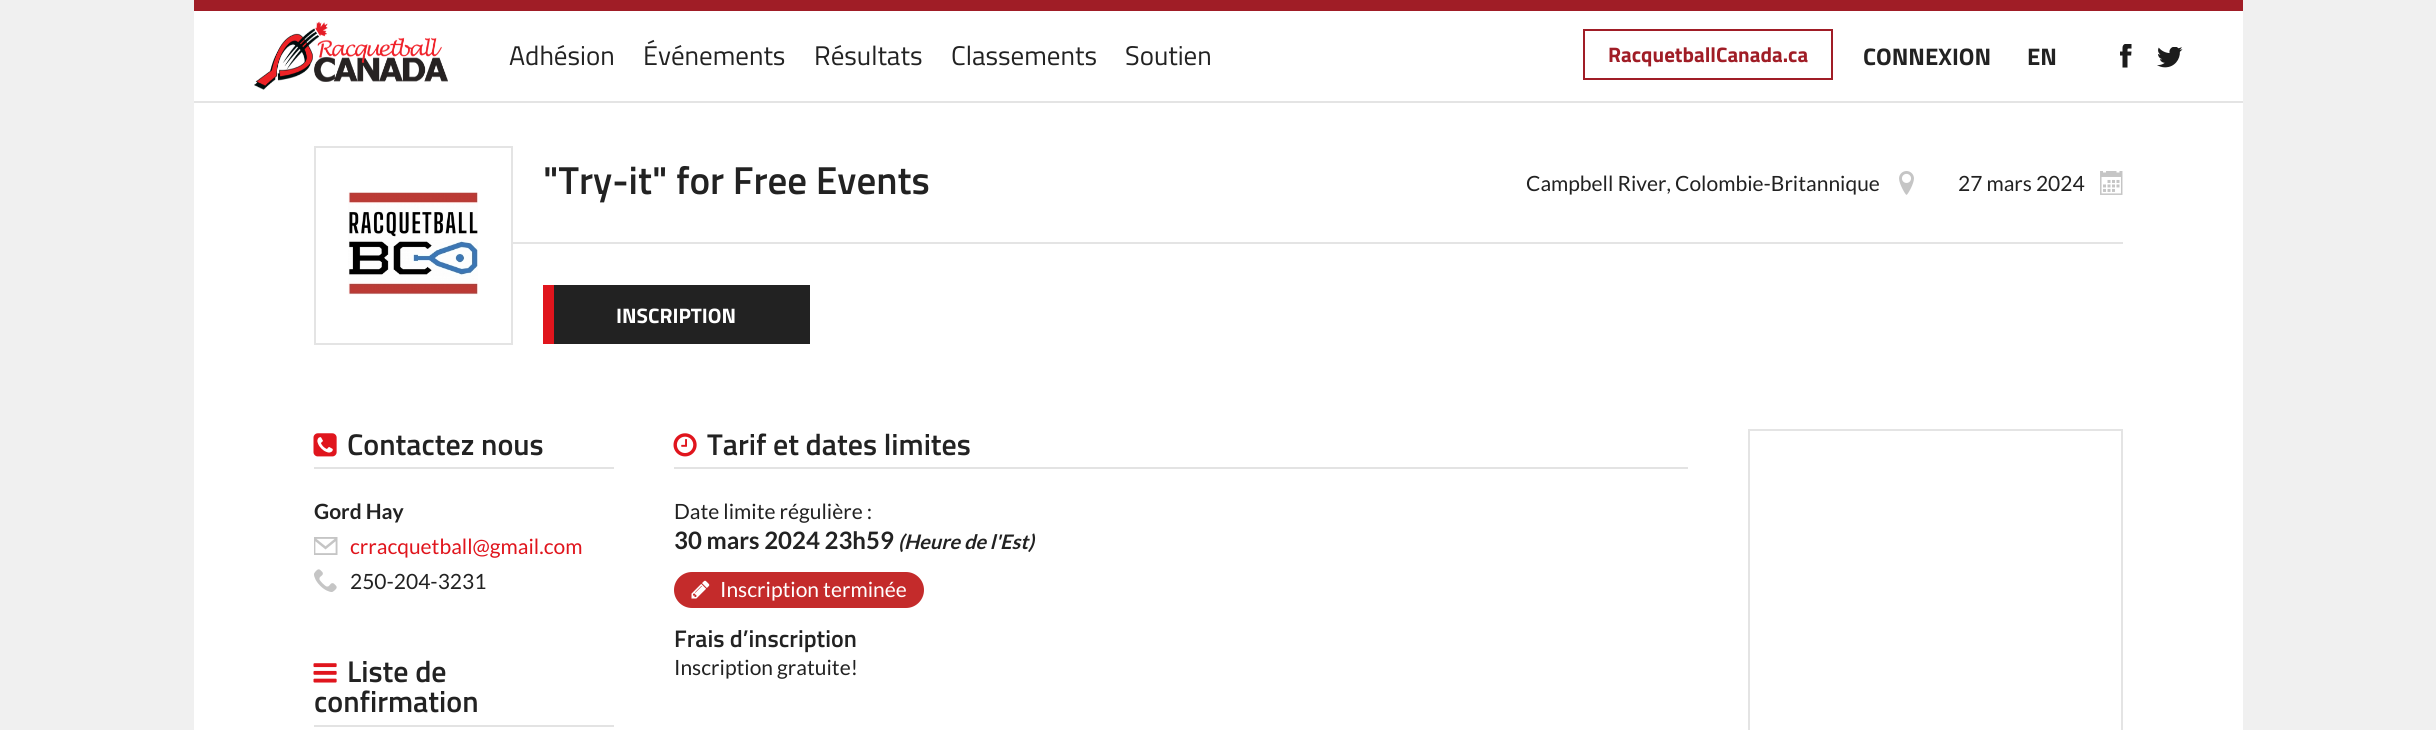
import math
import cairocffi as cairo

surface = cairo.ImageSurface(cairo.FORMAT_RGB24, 2436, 730)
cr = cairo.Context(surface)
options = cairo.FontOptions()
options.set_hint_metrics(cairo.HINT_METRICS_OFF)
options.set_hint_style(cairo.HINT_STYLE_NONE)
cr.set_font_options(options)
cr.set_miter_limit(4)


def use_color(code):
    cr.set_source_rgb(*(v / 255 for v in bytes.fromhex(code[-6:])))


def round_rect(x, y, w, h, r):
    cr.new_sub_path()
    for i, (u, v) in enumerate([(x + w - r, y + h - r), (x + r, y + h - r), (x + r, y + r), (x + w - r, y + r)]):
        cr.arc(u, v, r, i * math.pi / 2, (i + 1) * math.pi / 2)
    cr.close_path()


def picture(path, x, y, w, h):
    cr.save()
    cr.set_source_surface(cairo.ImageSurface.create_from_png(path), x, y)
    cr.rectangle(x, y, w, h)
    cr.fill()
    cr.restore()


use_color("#f0f0f0")
cr.paint()
use_color("#ffffff")
cr.rectangle(194, 11, 2049, 719)
cr.fill()
use_color("#e4e4e4")
cr.rectangle(194, 101, 2049, 2)
cr.fill()
use_color("#a01d26")
cr.rectangle(194, 0, 2049, 11)
cr.fill()
picture("img1.png", 254, 21, 194, 69)
cr.select_font_face("Titillium Web")
cr.set_font_size(27)
use_color("#222222")
cr.move_to(509, 65)
cr.show_text("Adhésion")
cr.move_to(643, 65)
cr.show_text("Événements")
cr.move_to(814, 65)
cr.show_text("Résultats")
cr.move_to(951, 65)
cr.show_text("Classements")
cr.move_to(1125, 65)
cr.show_text("Soutien")
cr.rectangle(1584, 30, 248, 49)
use_color("#a01d26")
cr.stroke()
cr.select_font_face("Titillium Web", cairo.FONT_SLANT_NORMAL, cairo.FONT_WEIGHT_BOLD)
cr.set_font_size(21)
cr.move_to(1608, 62)
cr.show_text("RacquetballCanada.ca")
cr.set_font_size(24)
use_color("#222222")
cr.move_to(1863, 65)
cr.show_text("CONNEXION")
cr.move_to(2027, 65)
cr.show_text("EN")
picture("img2.png", 2120, 44, 12, 24)
picture("img3.png", 2157, 47, 26, 21)
cr.rectangle(315, 147, 197, 197)
use_color("#e4e4e4")
cr.stroke()
picture("img4.png", 348, 192, 130, 103)
cr.rectangle(513, 242, 1610, 2)
cr.fill()
cr.select_font_face("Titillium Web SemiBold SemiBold")
cr.set_font_size(39)
use_color("#222222")
cr.move_to(543, 194)
cr.show_text("\"Try-it\" for Free Events")
picture("img5.png", 1899, 171, 15, 24)
cr.select_font_face("Lato")
cr.set_font_size(21)
cr.move_to(1526, 191)
cr.show_text("Campbell River, Colombie-Britannique")
picture("img6.png", 2100, 171, 23, 24)
cr.move_to(1958, 191)
cr.show_text("27 mars 2024")
cr.rectangle(554, 285, 256, 59)
cr.fill()
use_color("#e0151d")
cr.rectangle(543, 285, 11, 59)
cr.fill()
cr.select_font_face("Titillium Web", cairo.FONT_SLANT_NORMAL, cairo.FONT_WEIGHT_BOLD)
use_color("#ffffff")
cr.move_to(616, 323)
cr.show_text("INSCRIPTION")
use_color("#e3e3e3")
cr.rectangle(314, 467, 300, 2)
cr.fill()
picture("img7.png", 313, 433, 24, 24)
cr.select_font_face("Titillium Web SemiBold SemiBold")
cr.set_font_size(30)
use_color("#222222")
cr.move_to(347, 455)
cr.show_text("Contactez nous")
cr.select_font_face("Lato", cairo.FONT_SLANT_NORMAL, cairo.FONT_WEIGHT_BOLD)
cr.set_font_size(21)
cr.move_to(314, 519)
cr.show_text("Gord Hay")
picture("img8.png", 314, 537, 24, 18)
cr.select_font_face("Lato")
use_color("#e0151d")
cr.move_to(350, 554)
cr.show_text("crracquetball@gmail.com")
picture("img9.png", 314, 569, 23, 23)
use_color("#222222")
cr.move_to(350, 589)
cr.show_text("250-204-3231")
use_color("#e3e3e3")
cr.rectangle(314, 725, 300, 2)
cr.fill()
picture("img10.png", 313, 663, 24, 20)
cr.select_font_face("Titillium Web SemiBold SemiBold")
cr.set_font_size(30)
use_color("#222222")
cr.move_to(347, 682)
cr.show_text("Liste de")
cr.move_to(314, 712)
cr.show_text("confirmation")
use_color("#e4e4e4")
cr.rectangle(1748, 429, 375, 2)
cr.fill()
cr.rectangle(2121, 431, 2, 299)
cr.fill()
cr.rectangle(1748, 431, 2, 299)
cr.fill()
use_color("#e3e3e3")
cr.rectangle(674, 467, 1014, 2)
cr.fill()
picture("img11.png", 673, 433, 24, 24)
use_color("#222222")
cr.move_to(707, 455)
cr.show_text("Tarif et dates limites")
cr.select_font_face("Lato")
cr.set_font_size(21)
cr.move_to(674, 519)
cr.show_text("Date limite régulière :")
cr.select_font_face("Lato", cairo.FONT_SLANT_NORMAL, cairo.FONT_WEIGHT_BOLD)
cr.set_font_size(24)
cr.move_to(674, 549)
cr.show_text("30 mars 2024 23h59")
cr.select_font_face("Lato", cairo.FONT_SLANT_ITALIC, cairo.FONT_WEIGHT_BOLD)
cr.set_font_size(20)
cr.move_to(898, 549)
cr.show_text("(Heure de l'Est)")
use_color("#c42b2b")
round_rect(674, 572, 250, 36, 18)
cr.fill()
picture("img12.png", 691, 580, 19, 19)
cr.select_font_face("Lato")
cr.set_font_size(21)
use_color("#ffffff")
cr.move_to(720, 597)
cr.show_text("Inscription terminée")
cr.select_font_face("Titillium Web SemiBold SemiBold")
cr.set_font_size(24)
use_color("#222222")
cr.move_to(674, 647)
cr.show_text("Frais d’inscription")
cr.select_font_face("Lato")
cr.set_font_size(21)
cr.move_to(674, 675)
cr.show_text("Inscription gratuite!")
surface.write_to_png("result.png")
